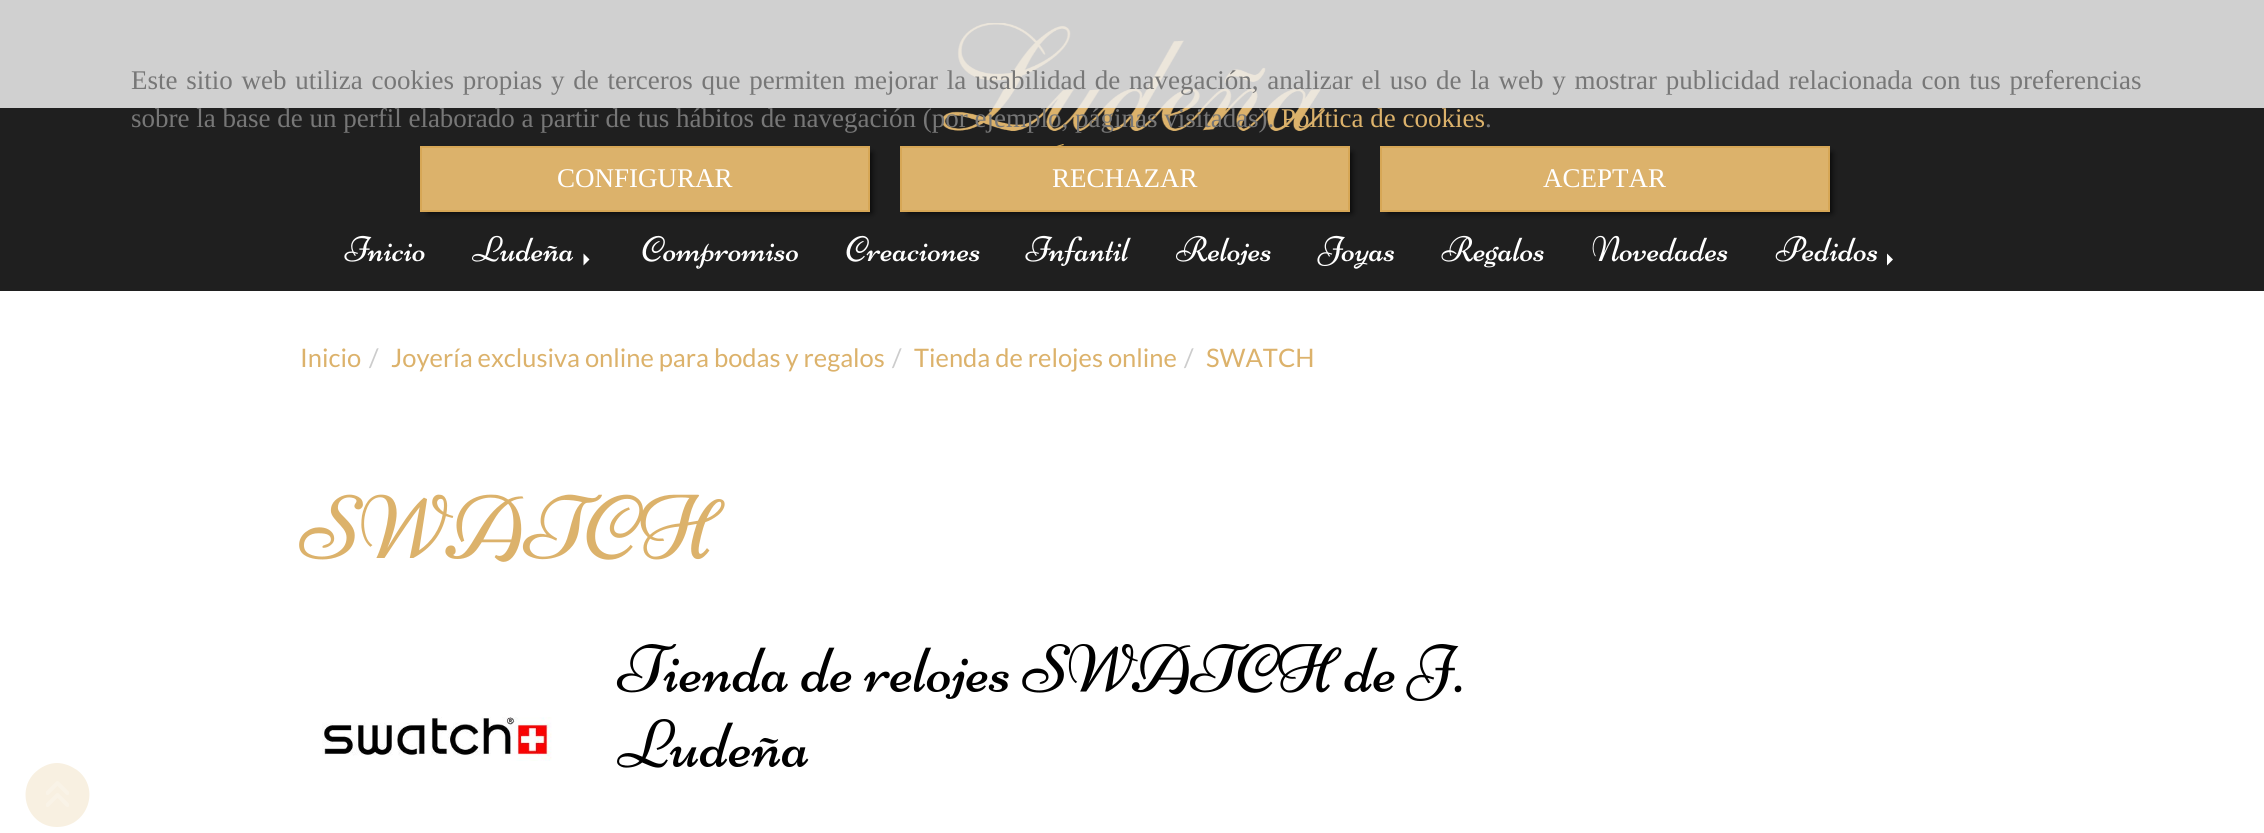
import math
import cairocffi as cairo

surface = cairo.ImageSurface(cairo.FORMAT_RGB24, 2264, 833)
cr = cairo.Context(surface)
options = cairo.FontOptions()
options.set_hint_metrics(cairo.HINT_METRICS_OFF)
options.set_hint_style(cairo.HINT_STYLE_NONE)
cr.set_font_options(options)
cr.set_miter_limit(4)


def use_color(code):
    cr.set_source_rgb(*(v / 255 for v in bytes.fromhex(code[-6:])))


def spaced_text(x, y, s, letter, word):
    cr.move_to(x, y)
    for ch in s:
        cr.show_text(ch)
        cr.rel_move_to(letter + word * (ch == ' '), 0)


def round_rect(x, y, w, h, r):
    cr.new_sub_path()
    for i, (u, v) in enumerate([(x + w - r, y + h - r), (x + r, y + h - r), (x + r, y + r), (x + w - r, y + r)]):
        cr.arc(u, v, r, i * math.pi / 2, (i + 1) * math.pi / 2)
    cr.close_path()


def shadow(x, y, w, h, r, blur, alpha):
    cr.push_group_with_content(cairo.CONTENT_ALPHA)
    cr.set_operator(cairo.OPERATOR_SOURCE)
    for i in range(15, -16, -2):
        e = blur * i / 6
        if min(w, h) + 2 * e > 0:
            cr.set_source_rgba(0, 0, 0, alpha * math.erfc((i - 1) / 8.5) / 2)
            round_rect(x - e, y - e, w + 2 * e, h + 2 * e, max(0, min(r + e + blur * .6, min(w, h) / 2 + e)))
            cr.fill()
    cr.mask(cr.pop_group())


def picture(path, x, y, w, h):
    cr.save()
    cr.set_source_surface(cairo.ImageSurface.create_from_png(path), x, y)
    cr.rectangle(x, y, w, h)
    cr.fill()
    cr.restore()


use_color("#ffffff")
cr.paint()
use_color("#1f1f1f")
cr.rectangle(0, 0, 2264, 291)
cr.fill()
picture("img1.png", 941, 23, 384, 123)
picture("img2.png", 344, 235, 81, 27)
picture("img3.png", 472, 235, 102, 27)
use_color("#ffffff")
cr.new_path()
cr.move_to(583.5, 265.5)
cr.line_to(583.5, 253.5)
cr.line_to(589.5, 259.5)
cr.close_path()
cr.fill()
picture("img4.png", 642, 235, 156, 34)
picture("img5.png", 846, 235, 134, 27)
picture("img6.png", 1025, 235, 106, 31)
picture("img7.png", 1176, 235, 95, 30)
picture("img8.png", 1317, 235, 77, 34)
picture("img9.png", 1441, 235, 103, 33)
picture("img10.png", 1592, 235, 136, 27)
picture("img11.png", 1775, 235, 103, 27)
cr.new_path()
cr.move_to(1887, 265.5)
cr.line_to(1887, 253.5)
cr.line_to(1893, 259.5)
cr.close_path()
cr.fill()
cr.set_source_rgba(0.933, 0.933, 0.933, 0.85)
cr.rectangle(0, 0, 2264, 108)
cr.fill()
cr.select_font_face("Liberation Serif")
cr.set_font_size(27)
use_color("#777777")
spaced_text(131, 89, "Este sitio web utiliza cookies propias y de terceros que permiten mejorar la usabilidad de navegación, analizar el uso de la web y mostrar publicidad relacionada con tus preferencias", 0, 2)
cr.move_to(131, 127)
cr.show_text("sobre la base de un perfil elaborado a partir de tus hábitos de navegación (por ejemplo, páginas visitadas).")
use_color("#dcb26b")
cr.move_to(1281, 127)
cr.show_text("Política de cookies")
use_color("#777777")
cr.move_to(1485, 127)
cr.show_text(".")
use_color("#000000")
shadow(428, 153, 444, 60, 0, 3, 0.75)
use_color("#dcb26b")
cr.rectangle(421, 147, 448, 64)
cr.fill_preserve()
use_color("#d7a756")
cr.stroke()
use_color("#ffffff")
cr.move_to(557, 187)
cr.show_text("CONFIGURAR")
use_color("#000000")
shadow(908, 153, 444, 60, 0, 3, 0.75)
use_color("#dcb26b")
cr.rectangle(901, 147, 448, 64)
cr.fill_preserve()
use_color("#d7a756")
cr.stroke()
use_color("#ffffff")
cr.move_to(1052, 187)
cr.show_text("RECHAZAR")
use_color("#000000")
shadow(1388, 153, 444, 60, 0, 3, 0.75)
use_color("#dcb26b")
cr.rectangle(1381, 147, 448, 64)
cr.fill_preserve()
use_color("#d7a756")
cr.stroke()
use_color("#ffffff")
cr.move_to(1543, 187)
cr.show_text("ACEPTAR")
cr.select_font_face("Lato")
cr.set_font_size(25.5)
use_color("#dcb26b")
cr.move_to(300, 367)
cr.show_text("Inicio")
use_color("#cccccc")
cr.move_to(369, 367)
cr.show_text("/")
use_color("#dcb26b")
cr.move_to(391, 367)
cr.show_text("Joyería exclusiva online para bodas y regalos")
use_color("#cccccc")
cr.move_to(892, 367)
cr.show_text("/")
use_color("#dcb26b")
cr.move_to(914, 367)
cr.show_text("Tienda de relojes online")
use_color("#cccccc")
cr.move_to(1184, 367)
cr.show_text("/")
use_color("#dcb26b")
cr.move_to(1206, 367)
cr.show_text("SWATCH")
picture("img12.png", 299, 494, 426, 68)
picture("img13.png", 322, 717, 230, 44)
picture("img14.png", 616, 644, 846, 57)
picture("img15.png", 617, 719, 192, 49)
use_color("#f8f0e1")
cr.new_path()
cr.move_to(57, 827)
cr.curve_to(88, 827, 101, 788, 77, 770)
cr.curve_to(71, 766, 64, 763, 57, 763)
cr.curve_to(50, 763, 43, 766, 38, 770)
cr.curve_to(14, 788, 27, 827, 57, 827)
cr.close_path()
cr.fill()
picture("img16.png", 46, 781, 23, 26)
surface.write_to_png("result.png")
